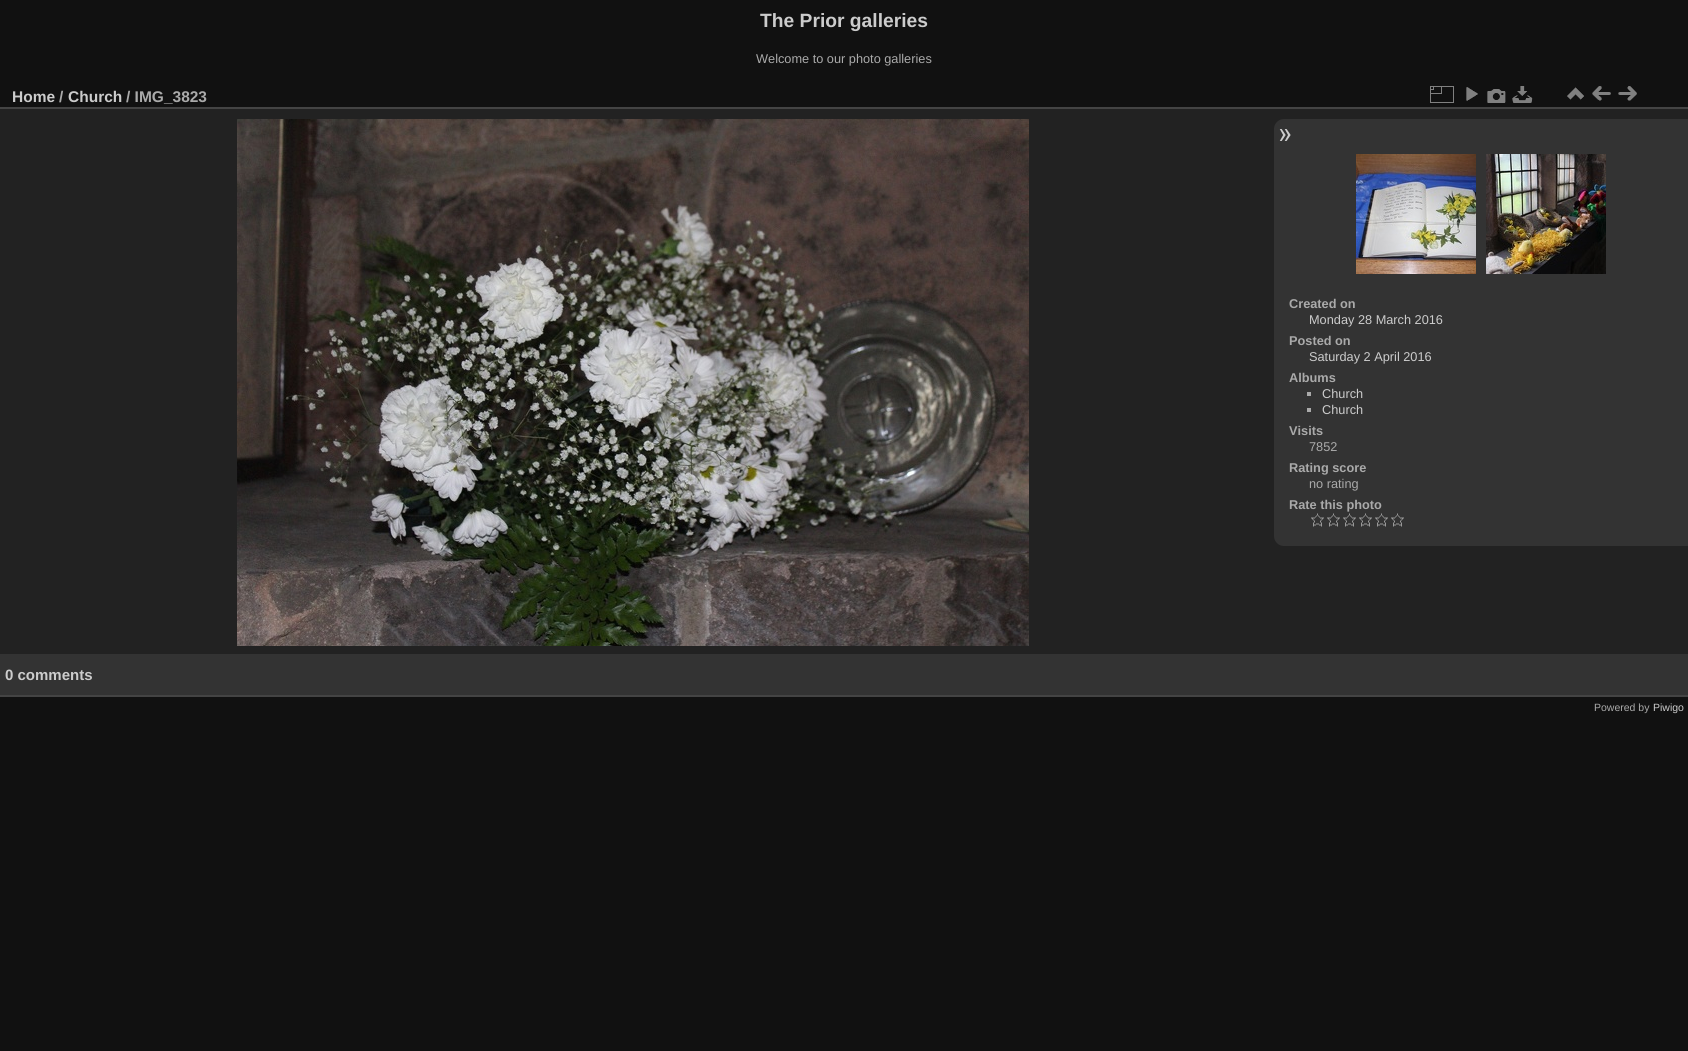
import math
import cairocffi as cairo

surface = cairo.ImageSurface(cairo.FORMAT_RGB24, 1688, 1051)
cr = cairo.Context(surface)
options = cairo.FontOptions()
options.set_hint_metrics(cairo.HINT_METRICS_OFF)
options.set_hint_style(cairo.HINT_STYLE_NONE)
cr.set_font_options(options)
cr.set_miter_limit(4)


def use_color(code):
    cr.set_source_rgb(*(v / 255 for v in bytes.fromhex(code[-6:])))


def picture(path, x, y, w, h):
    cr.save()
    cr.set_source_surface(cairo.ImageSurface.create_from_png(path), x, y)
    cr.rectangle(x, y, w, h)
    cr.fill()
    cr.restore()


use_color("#111111")
cr.paint()
cr.select_font_face("Liberation Sans", cairo.FONT_SLANT_NORMAL, cairo.FONT_WEIGHT_BOLD)
cr.set_font_size(19.25)
use_color("#cccccc")
cr.move_to(760, 27)
cr.show_text("The Prior galleries")
cr.select_font_face("Liberation Sans")
cr.set_font_size(12.75)
use_color("#aaaaaa")
cr.move_to(756, 63)
cr.show_text("Welcome to our photo galleries")
use_color("#222222")
cr.rectangle(0, 109, 1688, 545)
cr.fill()
use_color("#444444")
cr.rectangle(0, 695, 1688, 2)
cr.fill()
cr.rectangle(0, 107, 1688, 2)
cr.fill()
cr.select_font_face("Liberation Sans", cairo.FONT_SLANT_NORMAL, cairo.FONT_WEIGHT_BOLD)
cr.set_font_size(15.5)
use_color("#cccccc")
cr.move_to(12, 102)
cr.show_text("Home")
use_color("#aaaaaa")
cr.move_to(59, 102)
cr.show_text("/")
use_color("#cccccc")
cr.move_to(68, 102)
cr.show_text("Church")
use_color("#aaaaaa")
cr.move_to(126, 102)
cr.show_text("/ IMG_3823")
picture("img1.png", 1430, 86, 24, 17)
picture("img2.png", 1466, 87, 12, 14)
picture("img3.png", 1487, 89, 19, 14)
picture("img4.png", 1512, 86, 21, 17)
picture("img5.png", 1567, 87, 17, 13)
picture("img6.png", 1592, 86, 19, 15)
picture("img7.png", 1618, 86, 19, 15)
picture("img8.png", 237, 119, 792, 527)
use_color("#333333")
cr.new_path()
cr.move_to(1284, 119)
cr.line_to(1688, 119)
cr.line_to(1688, 546)
cr.line_to(1284, 546)
cr.curve_to(1278.5, 546, 1274, 541.5, 1274, 536)
cr.line_to(1274, 129)
cr.curve_to(1274, 123.5, 1278.5, 119, 1284, 119)
cr.close_path()
cr.fill()
picture("img9.png", 1279, 129, 12, 12)
picture("img10.png", 1356, 154, 120, 120)
picture("img11.png", 1486, 154, 120, 120)
cr.set_font_size(12.75)
use_color("#aaaaaa")
cr.move_to(1289, 308)
cr.show_text("Created on")
cr.select_font_face("Liberation Sans")
use_color("#cccccc")
cr.move_to(1309, 324)
cr.show_text("Monday 28 March 2016")
cr.select_font_face("Liberation Sans", cairo.FONT_SLANT_NORMAL, cairo.FONT_WEIGHT_BOLD)
use_color("#aaaaaa")
cr.move_to(1289, 345)
cr.show_text("Posted on")
cr.select_font_face("Liberation Sans")
use_color("#cccccc")
cr.move_to(1309, 361)
cr.show_text("Saturday 2 April 2016")
cr.select_font_face("Liberation Sans", cairo.FONT_SLANT_NORMAL, cairo.FONT_WEIGHT_BOLD)
use_color("#aaaaaa")
cr.move_to(1289, 382)
cr.show_text("Albums")
cr.rectangle(1307, 392, 4, 4)
cr.fill()
cr.select_font_face("Liberation Sans")
use_color("#cccccc")
cr.move_to(1322, 398)
cr.show_text("Church")
use_color("#aaaaaa")
cr.rectangle(1307, 408, 4, 4)
cr.fill()
use_color("#cccccc")
cr.move_to(1322, 414)
cr.show_text("Church")
cr.select_font_face("Liberation Sans", cairo.FONT_SLANT_NORMAL, cairo.FONT_WEIGHT_BOLD)
use_color("#aaaaaa")
cr.move_to(1289, 435)
cr.show_text("Visits")
cr.select_font_face("Liberation Sans")
cr.move_to(1309, 451)
cr.show_text("7852")
cr.select_font_face("Liberation Sans", cairo.FONT_SLANT_NORMAL, cairo.FONT_WEIGHT_BOLD)
cr.move_to(1289, 472)
cr.show_text("Rating score")
cr.select_font_face("Liberation Sans")
cr.move_to(1309, 488)
cr.show_text("no rating")
cr.select_font_face("Liberation Sans", cairo.FONT_SLANT_NORMAL, cairo.FONT_WEIGHT_BOLD)
cr.move_to(1289, 509)
cr.show_text("Rate this photo")
picture("img12.png", 1311, 513, 13, 14)
picture("img12.png", 1327, 513, 13, 14)
picture("img12.png", 1343, 513, 13, 14)
picture("img12.png", 1359, 513, 13, 14)
picture("img12.png", 1375, 513, 13, 14)
picture("img12.png", 1391, 513, 13, 14)
use_color("#333333")
cr.rectangle(0, 654, 1688, 41)
cr.fill()
cr.set_font_size(15)
use_color("#cccccc")
cr.move_to(5, 680)
cr.show_text("0 comments")
cr.select_font_face("Liberation Sans")
cr.set_font_size(10.5)
use_color("#aaaaaa")
cr.move_to(1594, 711)
cr.show_text("Powered by")
use_color("#cccccc")
cr.move_to(1653, 711)
cr.show_text("Piwigo")
surface.write_to_png("result.png")
